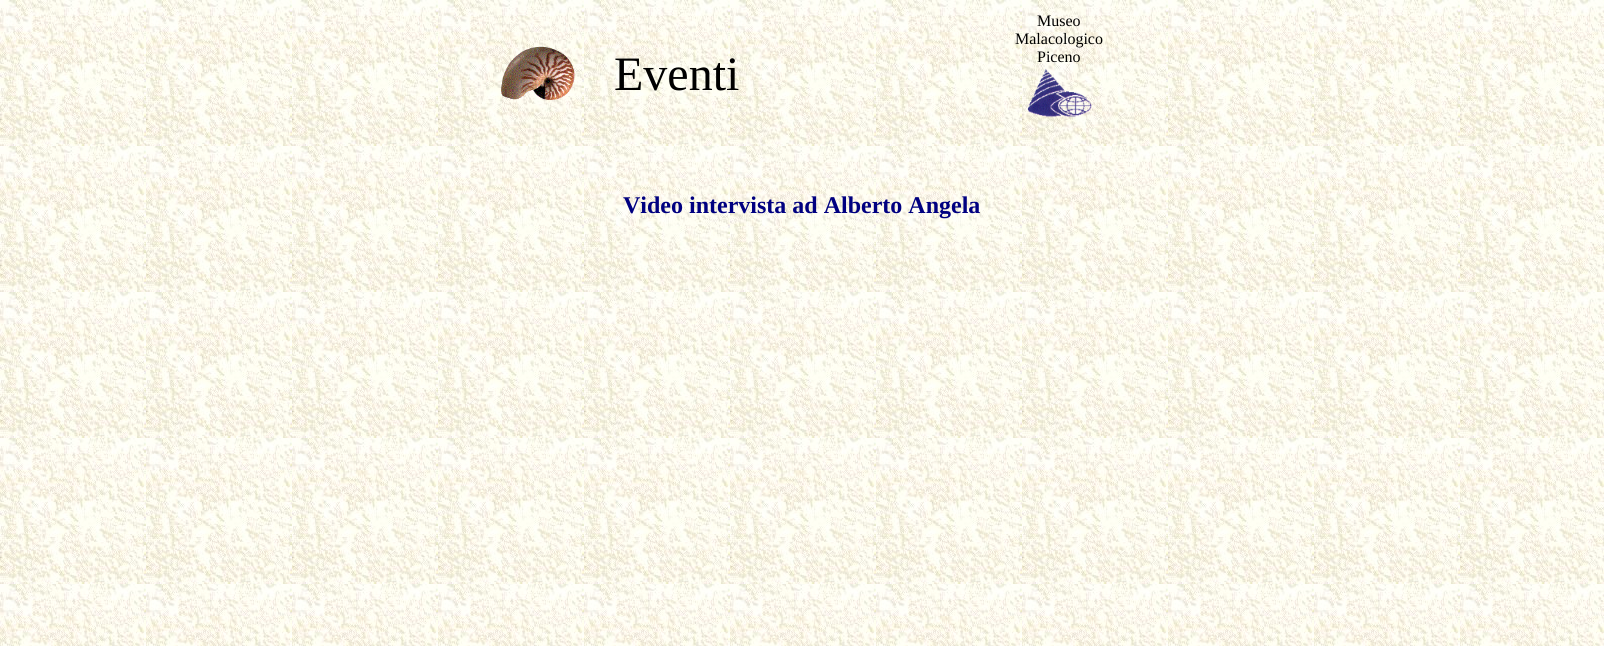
import math
import cairocffi as cairo

surface = cairo.ImageSurface(cairo.FORMAT_RGB24, 1604, 646)
cr = cairo.Context(surface)
options = cairo.FontOptions()
options.set_hint_metrics(cairo.HINT_METRICS_OFF)
options.set_hint_style(cairo.HINT_STYLE_NONE)
cr.set_font_options(options)
cr.set_miter_limit(4)


def use_color(code):
    cr.set_source_rgb(*(v / 255 for v in bytes.fromhex(code[-6:])))


def picture(path, x, y, w, h):
    cr.save()
    cr.set_source_surface(cairo.ImageSurface.create_from_png(path), x, y)
    cr.rectangle(x, y, w, h)
    cr.fill()
    cr.restore()


use_color("#ffffff")
cr.paint()
picture("img1.png", 0, 0, 1604, 646)
cr.select_font_face("Liberation Serif")
cr.set_font_size(16)
use_color("#000000")
cr.move_to(1037, 26)
cr.show_text("Museo")
cr.move_to(1015, 44)
cr.show_text("Malacologico")
cr.move_to(1037, 62)
cr.show_text("Piceno")
picture("img2.png", 1027, 66, 65, 51)
picture("img3.png", 501, 46, 74, 54)
cr.set_font_size(48)
cr.move_to(614, 90)
cr.show_text("Eventi")
cr.select_font_face("Liberation Serif", cairo.FONT_SLANT_NORMAL, cairo.FONT_WEIGHT_BOLD)
cr.set_font_size(24)
use_color("#000080")
cr.move_to(623, 213)
cr.show_text("Video intervista ad Alberto Angela")
surface.write_to_png("result.png")
